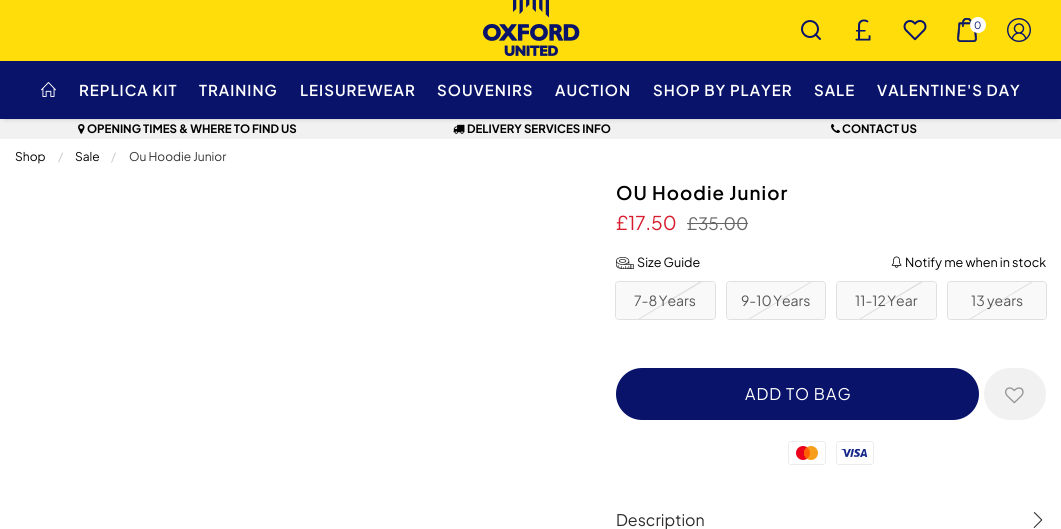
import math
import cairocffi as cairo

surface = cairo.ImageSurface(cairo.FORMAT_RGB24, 1061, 529)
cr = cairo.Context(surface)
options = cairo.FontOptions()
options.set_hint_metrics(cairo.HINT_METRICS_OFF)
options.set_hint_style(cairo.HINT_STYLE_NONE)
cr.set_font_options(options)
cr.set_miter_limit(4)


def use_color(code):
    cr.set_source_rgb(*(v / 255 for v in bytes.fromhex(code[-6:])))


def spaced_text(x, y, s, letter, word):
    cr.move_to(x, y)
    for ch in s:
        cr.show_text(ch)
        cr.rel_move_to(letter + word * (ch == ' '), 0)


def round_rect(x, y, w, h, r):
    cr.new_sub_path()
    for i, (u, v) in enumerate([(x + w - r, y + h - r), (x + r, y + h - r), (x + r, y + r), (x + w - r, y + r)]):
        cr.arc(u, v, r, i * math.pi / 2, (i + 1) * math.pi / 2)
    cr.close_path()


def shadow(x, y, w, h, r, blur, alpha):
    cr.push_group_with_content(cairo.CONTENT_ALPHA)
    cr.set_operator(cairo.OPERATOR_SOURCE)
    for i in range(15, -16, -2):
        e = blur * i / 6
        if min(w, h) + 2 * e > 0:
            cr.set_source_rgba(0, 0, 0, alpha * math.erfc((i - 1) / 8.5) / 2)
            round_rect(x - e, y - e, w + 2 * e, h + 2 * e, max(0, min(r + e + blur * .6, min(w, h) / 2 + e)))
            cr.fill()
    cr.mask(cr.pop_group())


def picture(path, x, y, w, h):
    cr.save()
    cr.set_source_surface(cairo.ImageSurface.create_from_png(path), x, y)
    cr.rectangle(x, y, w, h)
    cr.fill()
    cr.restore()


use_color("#ffffff")
cr.paint()
use_color("#f1f1f1")
cr.rectangle(0, 119, 1061, 20)
cr.fill()
picture("img8.png", 78, 124, 7, 10)
picture("img9.png", 453, 124, 12, 10)
picture("img10.png", 831, 124, 9, 9)
use_color("#000000")
shadow(5, 5, 1051, 109, 0, 4, 1)
use_color("#081369")
cr.rectangle(0, 61, 1061, 58)
cr.fill()
use_color("#ffdd0a")
cr.rectangle(0, 0, 1061, 61)
cr.fill()
picture("img1.png", 513, 0, 36, 18)
picture("img2.png", 483, 24, 97, 32)
cr.arc(810, 29, 8, 0, 2 * math.pi)
use_color("#081369")
cr.stroke()
cr.new_path()
cr.move_to(820, 39)
cr.line_to(815.5, 34.5)
cr.set_line_cap(cairo.LINE_CAP_ROUND)
cr.set_line_join(cairo.LINE_JOIN_ROUND)
cr.stroke()
picture("img3.png", 855, 19, 16, 22)
picture("img4.png", 903, 20, 24, 21)
picture("img5.png", 957, 18, 20, 24)
use_color("#ffffff")
cr.arc(978, 25, 8, 0, 2 * math.pi)
cr.fill()
cr.select_font_face("Plus Jakarta Sans")
cr.set_font_size(10)
use_color("#081369")
cr.move_to(974, 29)
cr.show_text("0")
picture("img6.png", 1007, 18, 24, 24)
picture("img7.png", 41, 82, 15, 15)
cr.select_font_face("Plus Jakarta Sans SemiBold")
cr.set_font_size(15)
use_color("#ffffff")
spaced_text(79, 96, "REPLICA KIT", 1, 0)
spaced_text(199, 96, "TRAINING", 1, 0)
spaced_text(300, 96, "LEISUREWEAR", 1, 0)
spaced_text(437, 96, "SOUVENIRS", 1, 0)
spaced_text(555, 96, "AUCTION", 1, 0)
spaced_text(653, 96, "SHOP BY PLAYER", 1, 0)
spaced_text(814, 96, "SALE", 1, 0)
spaced_text(877, 96, "VALENTINE'S DAY", 1, 0)
cr.select_font_face("Plus Jakarta Sans", cairo.FONT_SLANT_NORMAL, cairo.FONT_WEIGHT_BOLD)
cr.set_font_size(11.5)
use_color("#000000")
cr.move_to(87, 133)
cr.show_text("OPENING TIMES & WHERE TO FIND US")
cr.move_to(467, 133)
cr.show_text("DELIVERY SERVICES INFO")
cr.move_to(842, 133)
cr.show_text("CONTACT US")
cr.select_font_face("Plus Jakarta Sans")
cr.set_font_size(12)
cr.move_to(15, 161)
cr.show_text("Shop")
use_color("#cacaca")
cr.move_to(58, 161)
cr.show_text("/")
use_color("#000000")
cr.move_to(75, 161)
cr.show_text("Sale")
use_color("#cacaca")
cr.move_to(111, 161)
cr.show_text("/")
use_color("#333333")
cr.move_to(129, 161)
cr.show_text("Ou Hoodie Junior")
cr.select_font_face("Plus Jakarta Sans SemiBold")
cr.set_font_size(18.75)
use_color("#000000")
spaced_text(616, 200, "OU Hoodie Junior", 1, 0)
cr.select_font_face("Plus Jakarta Sans")
cr.set_font_size(19)
use_color("#d71c2d")
cr.move_to(616, 230)
cr.show_text("£17.50")
cr.set_font_size(17)
use_color("#666666")
cr.move_to(687, 230)
cr.show_text("£35.00")
cr.rectangle(687, 223, 61, 1)
cr.fill()
picture("img11.png", 616, 257, 18, 12)
cr.set_font_size(12.6)
use_color("#000000")
cr.move_to(637, 267)
cr.show_text("Size Guide")
picture("img12.png", 891, 256, 11, 12)
cr.move_to(905, 267)
cr.show_text("Notify me when in stock")
round_rect(615.5, 281.5, 100, 38, 3.5)
use_color("#e0e0e0")
cr.set_line_width(1)
cr.set_line_cap(cairo.LINE_CAP_BUTT)
cr.set_line_join(cairo.LINE_JOIN_MITER)
cr.stroke()
use_color("#f9f9f9")
round_rect(616, 282, 99, 37, 3)
cr.fill()
use_color("#e0e0e0")
cr.new_path()
cr.move_to(702, 282)
cr.line_to(640, 319)
cr.line_to(638, 319)
cr.line_to(699, 282)
cr.close_path()
cr.fill()
cr.set_font_size(14)
use_color("#565656")
spaced_text(634, 306, "7-8 Years", 0, -1)
round_rect(726.5, 281.5, 99, 38, 3.5)
use_color("#e0e0e0")
cr.stroke()
use_color("#f9f9f9")
round_rect(727, 282, 98, 37, 3)
cr.fill()
use_color("#e0e0e0")
cr.new_path()
cr.move_to(812, 282)
cr.line_to(750, 319)
cr.line_to(748, 319)
cr.line_to(810, 282)
cr.close_path()
cr.fill()
use_color("#565656")
spaced_text(741, 306, "9-10 Years", 0, -1)
round_rect(836.5, 281.5, 100, 38, 3.5)
use_color("#e0e0e0")
cr.stroke()
use_color("#f9f9f9")
round_rect(837, 282, 99, 37, 3)
cr.fill()
use_color("#e0e0e0")
cr.new_path()
cr.move_to(923, 282)
cr.line_to(861, 319)
cr.line_to(859, 319)
cr.line_to(920, 282)
cr.close_path()
cr.fill()
use_color("#565656")
spaced_text(855, 306, "11-12 Year", 0, -1)
round_rect(947.5, 281.5, 99, 38, 3.5)
use_color("#e0e0e0")
cr.stroke()
use_color("#f9f9f9")
round_rect(948, 282, 98, 37, 3)
cr.fill()
use_color("#e0e0e0")
cr.new_path()
cr.move_to(1033, 282)
cr.line_to(971, 319)
cr.line_to(969, 319)
cr.line_to(1031, 282)
cr.close_path()
cr.fill()
use_color("#565656")
cr.move_to(971, 306)
cr.show_text("13 years")
use_color("#081369")
round_rect(616, 368, 363, 52, 26)
cr.fill()
cr.set_font_size(16)
use_color("#ffffff")
spaced_text(745, 400, "ADD TO BAG", 1, 0)
use_color("#f1f1f1")
round_rect(984, 368, 62, 52, 26)
cr.fill()
picture("img13.png", 1005, 387, 19, 17)
picture("img14.png", 788, 441, 38, 24)
picture("img15.png", 836, 441, 38, 24)
use_color("#2d2d2d")
cr.move_to(616, 526)
cr.show_text("Description")
picture("img16.png", 1033, 512, 10, 16)
surface.write_to_png("result.png")
